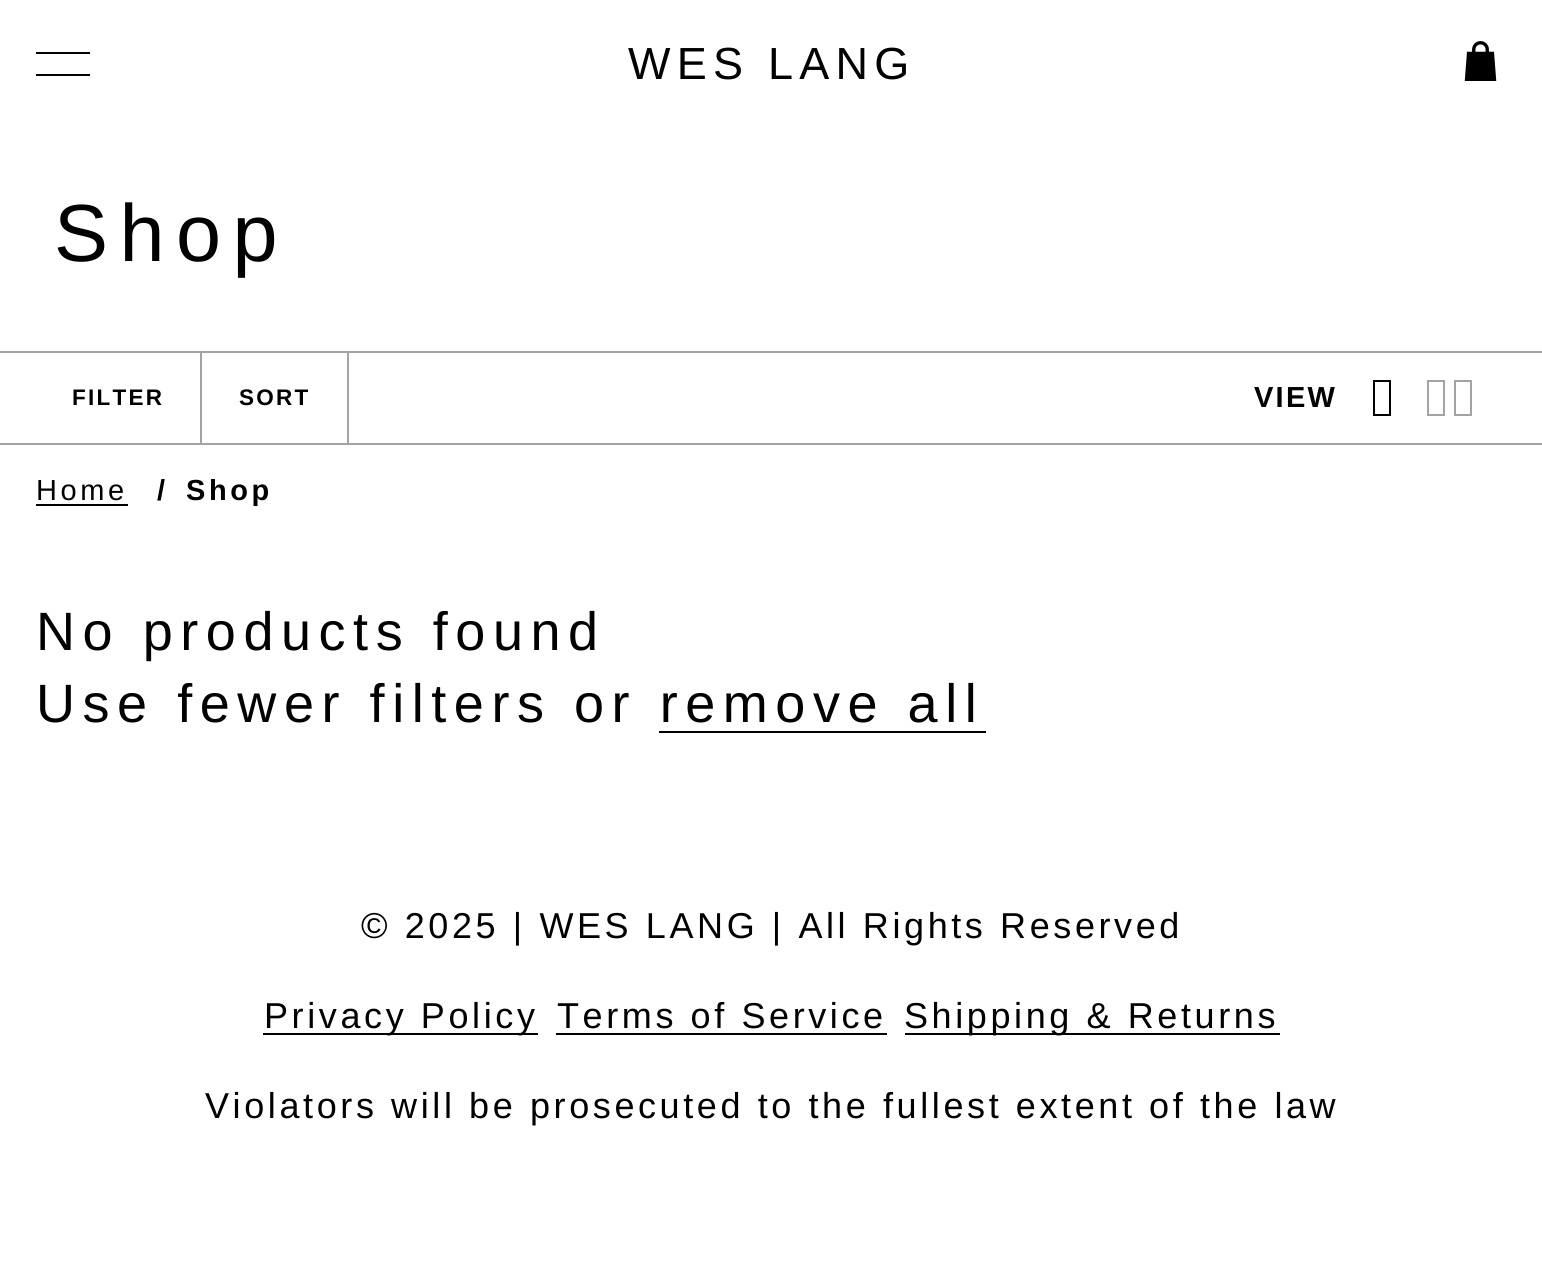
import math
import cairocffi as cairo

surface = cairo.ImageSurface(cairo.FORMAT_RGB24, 1542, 1282)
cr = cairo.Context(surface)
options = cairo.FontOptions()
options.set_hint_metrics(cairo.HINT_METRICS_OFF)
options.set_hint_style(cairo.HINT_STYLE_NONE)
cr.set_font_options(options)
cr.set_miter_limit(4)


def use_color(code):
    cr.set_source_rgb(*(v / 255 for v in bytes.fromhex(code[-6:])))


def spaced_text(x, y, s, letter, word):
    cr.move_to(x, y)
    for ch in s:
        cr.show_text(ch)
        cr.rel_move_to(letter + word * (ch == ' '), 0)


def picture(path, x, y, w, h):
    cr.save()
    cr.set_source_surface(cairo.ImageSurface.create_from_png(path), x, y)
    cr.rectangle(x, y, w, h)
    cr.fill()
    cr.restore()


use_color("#ffffff")
cr.paint()
use_color("#000000")
cr.rectangle(36, 52, 54, 2)
cr.fill()
cr.rectangle(36, 74, 54, 2)
cr.fill()
cr.select_font_face("Liberation Sans")
cr.set_font_size(45)
spaced_text(628, 79, "WES LANG", 6.25, 0)
picture("img1.png", 1464, 41, 33, 40)
cr.set_font_size(81)
spaced_text(54, 261, "Shop", 11.5, 0)
use_color("#a3a3a3")
cr.rectangle(0, 351, 1542, 2)
cr.fill()
cr.rectangle(0, 443, 1542, 2)
cr.fill()
cr.rectangle(200, 353, 2, 90)
cr.fill()
cr.select_font_face("Liberation Sans", cairo.FONT_SLANT_NORMAL, cairo.FONT_WEIGHT_BOLD)
cr.set_font_size(22.5)
use_color("#000000")
spaced_text(72, 405, "FILTER", 2.25, 0)
use_color("#a3a3a3")
cr.rectangle(347, 353, 2, 90)
cr.fill()
use_color("#000000")
spaced_text(239, 405, "SORT", 2.25, 0)
cr.set_font_size(29)
spaced_text(1254, 407, "VIEW", 2.25, 0)
cr.rectangle(1374, 381, 16, 34)
cr.stroke()
cr.rectangle(1428, 381, 16, 34)
use_color("#a3a3a3")
cr.stroke()
cr.rectangle(1455, 381, 16, 34)
cr.stroke()
cr.select_font_face("Liberation Sans")
use_color("#000000")
spaced_text(36, 500, "Home", 3.6, 0)
cr.rectangle(36, 504, 92, 2)
cr.fill()
cr.select_font_face("Liberation Sans", cairo.FONT_SLANT_NORMAL, cairo.FONT_WEIGHT_BOLD)
spaced_text(157, 500, "/", 3.6, 0)
spaced_text(186, 500, "Shop", 3.6, 0)
cr.select_font_face("Liberation Sans")
cr.set_font_size(54)
spaced_text(36, 650, "No products found", 7.55, 0)
spaced_text(36, 722, "Use fewer filters or remove all", 7.55, 0)
cr.rectangle(659, 731, 327, 2)
cr.fill()
cr.set_font_size(36)
spaced_text(361, 938, "© 2025 | WES LANG | All Rights Reserved", 3.6, 0)
spaced_text(264, 1028, "Privacy Policy", 3.6, 0)
cr.rectangle(263, 1033, 275, 2)
cr.fill()
spaced_text(557, 1028, "Terms of Service", 3.6, 0)
cr.rectangle(556, 1033, 331, 2)
cr.fill()
spaced_text(904, 1028, "Shipping & Returns", 3.6, 0)
cr.rectangle(905, 1033, 375, 2)
cr.fill()
spaced_text(205, 1118, "Violators will be prosecuted to the fullest extent of the law", 3.6, 0)
surface.write_to_png("result.png")
